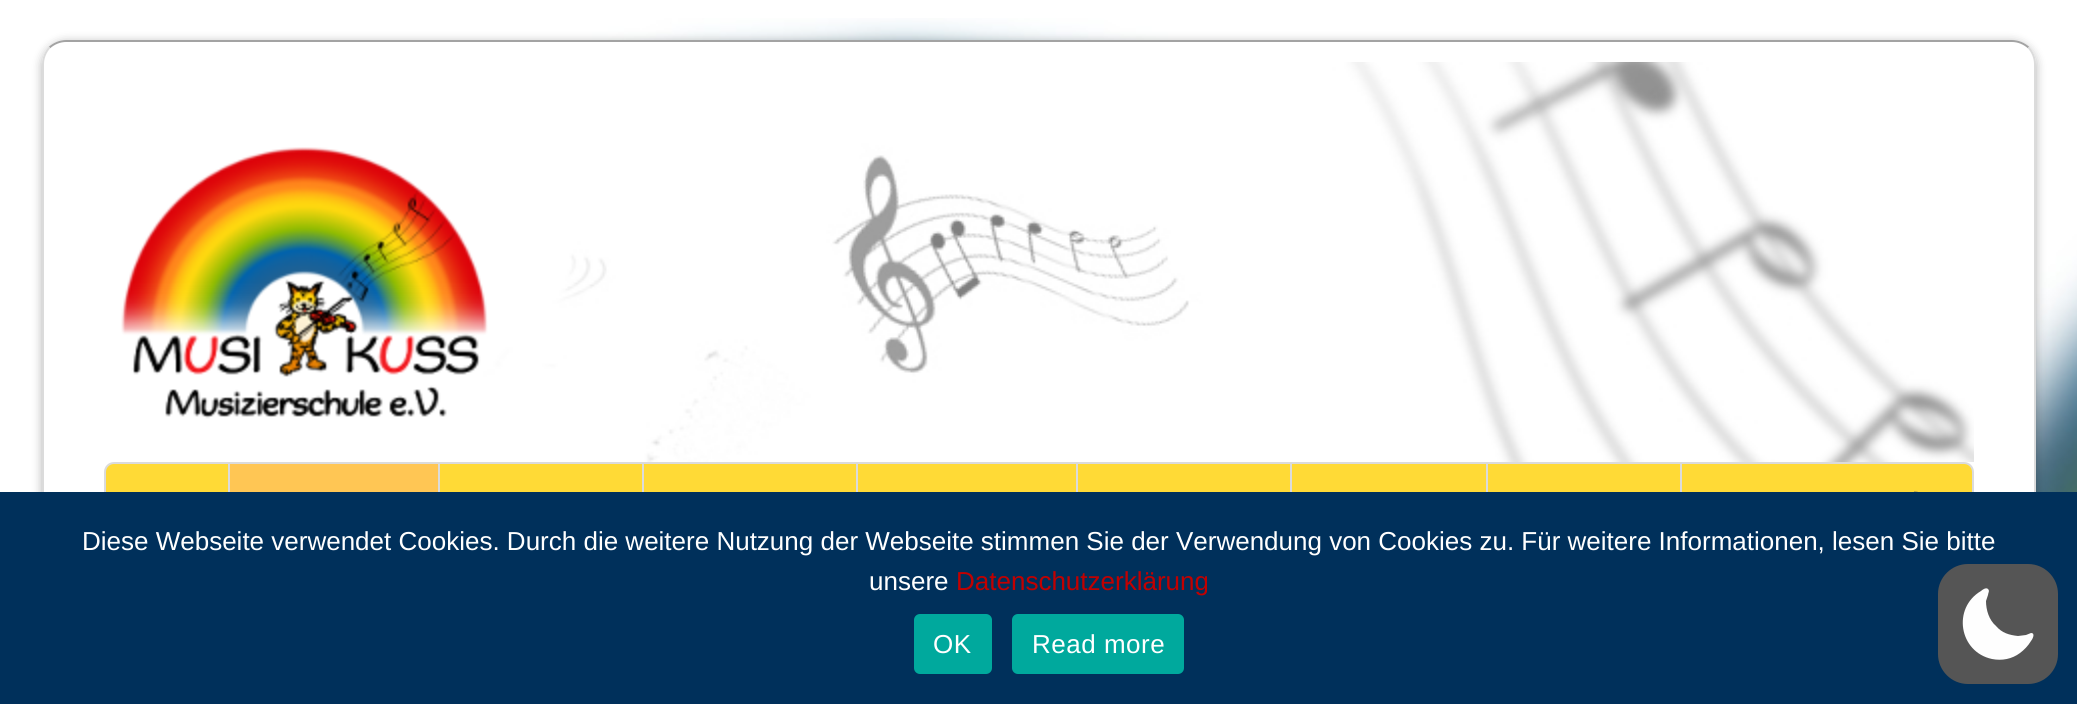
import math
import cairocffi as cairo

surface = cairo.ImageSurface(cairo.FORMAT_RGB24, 2077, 704)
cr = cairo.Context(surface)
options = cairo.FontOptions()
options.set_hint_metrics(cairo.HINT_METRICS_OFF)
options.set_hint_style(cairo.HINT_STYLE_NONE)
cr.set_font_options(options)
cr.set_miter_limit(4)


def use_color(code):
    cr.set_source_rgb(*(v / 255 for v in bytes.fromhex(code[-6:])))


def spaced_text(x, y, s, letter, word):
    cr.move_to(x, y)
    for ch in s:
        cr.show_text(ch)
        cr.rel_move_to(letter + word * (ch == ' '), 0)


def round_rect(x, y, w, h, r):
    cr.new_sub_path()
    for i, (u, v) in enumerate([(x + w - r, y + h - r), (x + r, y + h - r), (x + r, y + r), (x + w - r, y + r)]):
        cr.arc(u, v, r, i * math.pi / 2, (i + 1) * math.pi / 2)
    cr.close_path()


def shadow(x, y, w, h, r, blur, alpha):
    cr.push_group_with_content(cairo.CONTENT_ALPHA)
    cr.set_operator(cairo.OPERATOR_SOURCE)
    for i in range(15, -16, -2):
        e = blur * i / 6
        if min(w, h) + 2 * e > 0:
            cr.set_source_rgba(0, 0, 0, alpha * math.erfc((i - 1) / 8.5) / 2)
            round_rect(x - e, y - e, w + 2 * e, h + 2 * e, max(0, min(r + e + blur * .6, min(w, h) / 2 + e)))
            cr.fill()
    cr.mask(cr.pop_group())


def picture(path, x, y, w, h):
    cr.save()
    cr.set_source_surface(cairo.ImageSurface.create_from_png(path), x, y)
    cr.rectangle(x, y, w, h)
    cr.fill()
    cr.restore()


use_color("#ffffff")
cr.paint()
picture("img1.png", 80, 18, 1997, 474)
use_color("#000000")
shadow(42, 42, 1994, 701, 24, 5, 0.3)
use_color("#ffffff")
round_rect(42, 40, 1994, 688, 24)
cr.fill()
cr.new_path()
cr.move_to(49.5, 47.5)
cr.curve_to(54, 43.5, 60, 41, 66, 41)
cr.line_to(2012, 41)
cr.curve_to(2018, 41, 2024, 43.5, 2028.5, 47.5)
use_color("#a3a3a3")
cr.stroke()
cr.new_path()
cr.move_to(2028.5, 47.5)
cr.curve_to(2032.5, 52, 2035, 58, 2035, 64)
cr.line_to(2035, 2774)
cr.curve_to(2035, 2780, 2032.5, 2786, 2028.5, 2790.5)
use_color("#dbdbdb")
cr.stroke()
cr.new_path()
cr.move_to(49.5, 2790.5)
cr.curve_to(45.5, 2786, 43, 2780, 43, 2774)
cr.line_to(43, 64)
cr.curve_to(43, 58, 45.5, 52, 49.5, 47.5)
cr.stroke()
picture("img2.png", 458, 62, 1516, 400)
picture("img3.png", 121, 147, 367, 272)
use_color("#ffda36")
round_rect(105, 463, 1868, 86, 9)
cr.fill_preserve()
use_color("#dbdbdb")
cr.stroke()
cr.rectangle(228, 464, 2, 28)
cr.fill()
cr.rectangle(438, 464, 2, 28)
cr.fill()
use_color("#ffc654")
cr.rectangle(230, 464, 208, 28)
cr.fill()
use_color("#dbdbdb")
cr.rectangle(642, 464, 2, 28)
cr.fill()
cr.rectangle(856, 464, 2, 28)
cr.fill()
cr.rectangle(1076, 464, 2, 28)
cr.fill()
cr.rectangle(1290, 464, 2, 28)
cr.fill()
cr.rectangle(1486, 464, 2, 28)
cr.fill()
cr.rectangle(1680, 464, 2, 28)
cr.fill()
picture("img4.png", 1914, 491, 4, 1)
use_color("#00305b")
cr.rectangle(0, 492, 2077, 212)
cr.fill()
cr.select_font_face("Liberation Sans")
cr.set_font_size(26)
use_color("#ffffff")
cr.move_to(82, 550)
cr.show_text("Diese Webseite verwendet Cookies. Durch die weitere Nutzung der Webseite stimmen Sie der Verwendung von Cookies zu. Für weitere Informationen, lesen Sie bitte")
cr.move_to(869, 590)
cr.show_text("unsere")
use_color("#c20000")
cr.move_to(956, 590)
cr.show_text("Datenschutzerklärung")
use_color("#00a99d")
round_rect(914, 614, 78, 60, 6)
cr.fill()
use_color("#ffffff")
spaced_text(933, 653, "OK", 0.5, 0)
use_color("#00a99d")
round_rect(1012, 614, 172, 60, 6)
cr.fill()
use_color("#ffffff")
spaced_text(1032, 653, "Read more", 0.5, 0)
use_color("#555555")
round_rect(1938, 564, 120, 120, 30)
cr.fill()
use_color("#fefefe")
cr.set_fill_rule(cairo.FILL_RULE_EVEN_ODD)
cr.new_path()
cr.move_to(1988, 589)
cr.curve_to(1990, 591, 1988, 593, 1988, 595)
cr.line_to(1986, 601)
cr.curve_to(1986, 610, 1989, 620, 1996, 626)
cr.curve_to(2002, 633, 2009, 635, 2018, 636)
cr.line_to(2026, 635)
cr.line_to(2031, 633)
cr.curve_to(2036, 633, 2032, 640, 2031, 641)
cr.curve_to(2028, 646, 2024, 650, 2020, 653)
cr.curve_to(2012, 659, 2002, 661, 1992, 659)
cr.curve_to(1959, 652, 1952, 608, 1981, 591)
cr.curve_to(1982, 590, 1986, 587, 1988, 589)
cr.close_path()
cr.fill()
surface.write_to_png("result.png")
